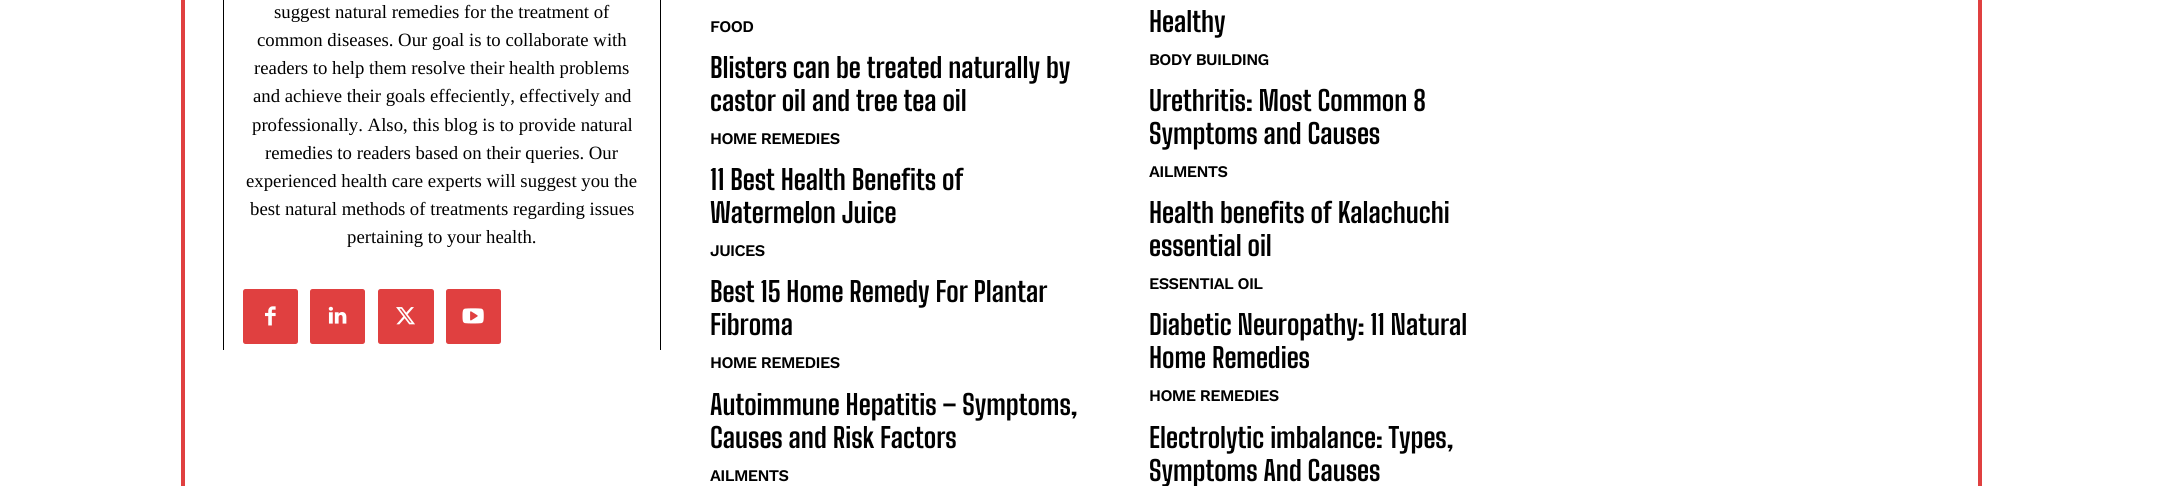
import math
import cairocffi as cairo

surface = cairo.ImageSurface(cairo.FORMAT_RGB24, 2162, 486)
cr = cairo.Context(surface)
options = cairo.FontOptions()
options.set_hint_metrics(cairo.HINT_METRICS_OFF)
options.set_hint_style(cairo.HINT_STYLE_NONE)
cr.set_font_options(options)
cr.set_miter_limit(4)


def use_color(code):
    cr.set_source_rgb(*(v / 255 for v in bytes.fromhex(code[-6:])))


def spaced_text(x, y, s, letter, word):
    cr.move_to(x, y)
    for ch in s:
        cr.show_text(ch)
        cr.rel_move_to(letter + word * (ch == ' '), 0)


def round_rect(x, y, w, h, r):
    cr.new_sub_path()
    for i, (u, v) in enumerate([(x + w - r, y + h - r), (x + r, y + h - r), (x + r, y + r), (x + w - r, y + r)]):
        cr.arc(u, v, r, i * math.pi / 2, (i + 1) * math.pi / 2)
    cr.close_path()


def picture(path, x, y, w, h):
    cr.save()
    cr.set_source_surface(cairo.ImageSurface.create_from_png(path), x, y)
    cr.rectangle(x, y, w, h)
    cr.fill()
    cr.restore()


use_color("#ffffff")
cr.paint()
use_color("#e04040")
cr.rectangle(1978, 0, 4, 486)
cr.fill()
cr.rectangle(181, 0, 4, 486)
cr.fill()
use_color("#000000")
cr.rectangle(660, 0, 1, 350)
cr.fill()
cr.rectangle(223, 0, 1, 350)
cr.fill()
cr.select_font_face("Liberation Serif")
cr.set_font_size(18.75)
cr.move_to(274, 18)
cr.show_text("suggest natural remedies for the treatment of")
cr.move_to(257, 46)
cr.show_text("common diseases. Our goal is to collaborate with")
cr.move_to(254, 74)
cr.show_text("readers to help them resolve their health problems")
cr.move_to(253, 102)
cr.show_text("and achieve their goals effeciently, effectively and")
cr.move_to(252, 131)
cr.show_text("professionally. Also, this blog is to provide natural")
cr.move_to(265, 159)
cr.show_text("remedies to readers based on their queries. Our")
cr.move_to(246, 187)
cr.show_text("experienced health care experts will suggest you the")
cr.move_to(250, 215)
cr.show_text("best natural methods of treatments regarding issues")
cr.move_to(347, 243)
cr.show_text("pertaining to your health.")
use_color("#e04040")
round_rect(243, 289, 55, 55, 2.5)
cr.fill()
picture("img1.png", 265, 306, 11, 20)
round_rect(310, 289, 55, 55, 2.5)
cr.fill()
picture("img2.png", 328, 306, 19, 18)
round_rect(378, 289, 56, 55, 2.5)
cr.fill()
picture("img3.png", 396, 307, 19, 18)
round_rect(446, 289, 55, 55, 2.5)
cr.fill()
picture("img4.png", 462, 308, 22, 16)
cr.select_font_face("Work Sans SemiBold")
cr.set_font_size(16.25)
use_color("#000000")
spaced_text(710, 32, "FOOD", -0.6, 0)
cr.select_font_face("Big Shoulders Text", cairo.FONT_SLANT_NORMAL, cairo.FONT_WEIGHT_BOLD)
cr.set_font_size(27.5)
cr.move_to(710, 78)
cr.show_text("Blisters can be treated naturally by")
cr.move_to(710, 111)
cr.show_text("castor oil and tree tea oil")
cr.select_font_face("Work Sans SemiBold")
cr.set_font_size(16.25)
spaced_text(710, 144, "HOME REMEDIES", -0.6, 0)
cr.select_font_face("Big Shoulders Text", cairo.FONT_SLANT_NORMAL, cairo.FONT_WEIGHT_BOLD)
cr.set_font_size(27.5)
cr.move_to(710, 190)
cr.show_text("11 Best Health Benefits of")
cr.move_to(710, 223)
cr.show_text("Watermelon Juice")
cr.select_font_face("Work Sans SemiBold")
cr.set_font_size(16.25)
spaced_text(710, 256, "JUICES", -0.6, 0)
cr.select_font_face("Big Shoulders Text", cairo.FONT_SLANT_NORMAL, cairo.FONT_WEIGHT_BOLD)
cr.set_font_size(27.5)
cr.move_to(710, 302)
cr.show_text("Best 15 Home Remedy For Plantar")
cr.move_to(710, 335)
cr.show_text("Fibroma")
cr.select_font_face("Work Sans SemiBold")
cr.set_font_size(16.25)
spaced_text(710, 368, "HOME REMEDIES", -0.6, 0)
cr.select_font_face("Big Shoulders Text", cairo.FONT_SLANT_NORMAL, cairo.FONT_WEIGHT_BOLD)
cr.set_font_size(27.5)
cr.move_to(710, 415)
cr.show_text("Autoimmune Hepatitis – Symptoms,")
cr.move_to(710, 448)
cr.show_text("Causes and Risk Factors")
cr.select_font_face("Work Sans SemiBold")
cr.set_font_size(16.25)
spaced_text(710, 481, "AILMENTS", -0.6, 0)
cr.select_font_face("Big Shoulders Text", cairo.FONT_SLANT_NORMAL, cairo.FONT_WEIGHT_BOLD)
cr.set_font_size(27.5)
cr.move_to(1149, 32)
cr.show_text("Healthy")
cr.select_font_face("Work Sans SemiBold")
cr.set_font_size(16.25)
spaced_text(1149, 65, "BODY BUILDING", -0.6, 0)
cr.select_font_face("Big Shoulders Text", cairo.FONT_SLANT_NORMAL, cairo.FONT_WEIGHT_BOLD)
cr.set_font_size(27.5)
cr.move_to(1149, 111)
cr.show_text("Urethritis: Most Common 8")
cr.move_to(1149, 144)
cr.show_text("Symptoms and Causes")
cr.select_font_face("Work Sans SemiBold")
cr.set_font_size(16.25)
spaced_text(1149, 177, "AILMENTS", -0.6, 0)
cr.select_font_face("Big Shoulders Text", cairo.FONT_SLANT_NORMAL, cairo.FONT_WEIGHT_BOLD)
cr.set_font_size(27.5)
cr.move_to(1149, 223)
cr.show_text("Health benefits of Kalachuchi")
cr.move_to(1149, 256)
cr.show_text("essential oil")
cr.select_font_face("Work Sans SemiBold")
cr.set_font_size(16.25)
spaced_text(1149, 289, "ESSENTIAL OIL", -0.6, 0)
cr.select_font_face("Big Shoulders Text", cairo.FONT_SLANT_NORMAL, cairo.FONT_WEIGHT_BOLD)
cr.set_font_size(27.5)
cr.move_to(1149, 335)
cr.show_text("Diabetic Neuropathy: 11 Natural")
cr.move_to(1149, 368)
cr.show_text("Home Remedies")
cr.select_font_face("Work Sans SemiBold")
cr.set_font_size(16.25)
spaced_text(1149, 401, "HOME REMEDIES", -0.6, 0)
cr.select_font_face("Big Shoulders Text", cairo.FONT_SLANT_NORMAL, cairo.FONT_WEIGHT_BOLD)
cr.set_font_size(27.5)
cr.move_to(1149, 448)
cr.show_text("Electrolytic imbalance: Types,")
cr.move_to(1149, 481)
cr.show_text("Symptoms And Causes")
surface.write_to_png("result.png")
